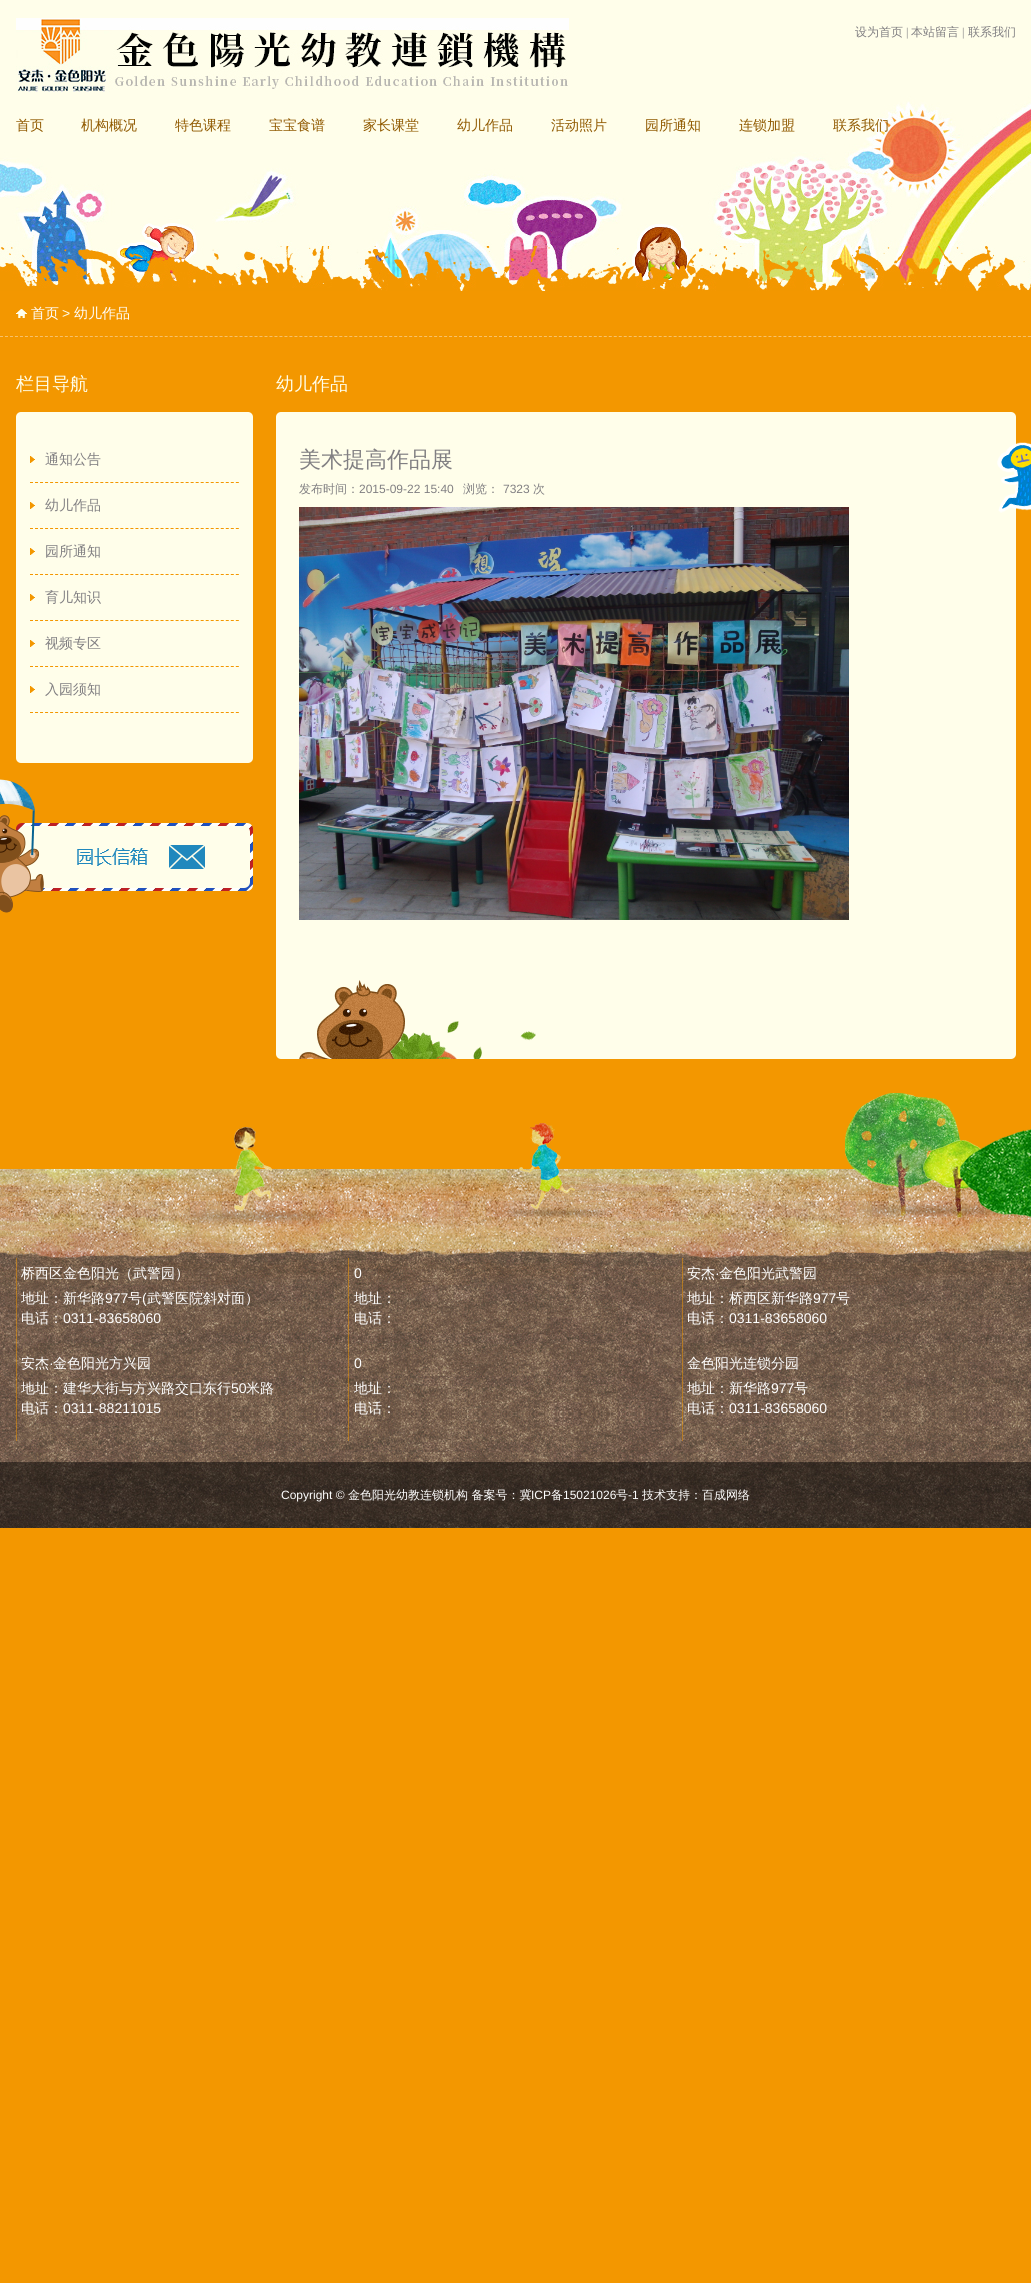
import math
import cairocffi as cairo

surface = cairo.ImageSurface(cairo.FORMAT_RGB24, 1031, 2283)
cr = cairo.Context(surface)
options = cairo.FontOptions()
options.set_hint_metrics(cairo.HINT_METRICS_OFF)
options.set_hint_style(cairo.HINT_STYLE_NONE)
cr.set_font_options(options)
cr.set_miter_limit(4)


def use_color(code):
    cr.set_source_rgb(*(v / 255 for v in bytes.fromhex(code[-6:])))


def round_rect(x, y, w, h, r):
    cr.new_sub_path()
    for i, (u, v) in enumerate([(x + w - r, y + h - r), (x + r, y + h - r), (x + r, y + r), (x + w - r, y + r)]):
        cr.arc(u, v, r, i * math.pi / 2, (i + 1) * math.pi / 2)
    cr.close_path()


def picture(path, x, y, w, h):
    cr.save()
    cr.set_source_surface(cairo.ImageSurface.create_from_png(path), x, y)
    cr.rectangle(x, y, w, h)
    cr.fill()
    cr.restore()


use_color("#f39700")
cr.paint()
picture("img1.png", 0, 0, 1031, 291)
picture("img2.png", 16, 18, 553, 75)
cr.select_font_face("WenQuanYi Zen Hei Medium")
cr.set_font_size(12)
use_color("#817f82")
cr.move_to(855, 36)
cr.show_text("设为首页")
cr.select_font_face("Liberation Serif")
cr.move_to(906, 36)
cr.show_text("|")
cr.select_font_face("WenQuanYi Zen Hei Medium")
cr.move_to(911, 36)
cr.show_text("本站留言")
cr.select_font_face("Liberation Serif")
cr.move_to(962, 36)
cr.show_text("|")
cr.select_font_face("WenQuanYi Zen Hei Medium")
cr.move_to(968, 36)
cr.show_text("联系我们")
cr.set_font_size(14)
use_color("#905900")
cr.move_to(16, 130)
cr.show_text("首页")
cr.move_to(81, 130)
cr.show_text("机构概况")
cr.save()
cr.rectangle(175, 110, 94, 30)
cr.clip()
cr.move_to(175, 130)
cr.show_text("特色课程")
cr.restore()
cr.move_to(269, 130)
cr.show_text("宝宝食谱")
cr.move_to(363, 130)
cr.show_text("家长课堂")
cr.move_to(457, 130)
cr.show_text("幼儿作品")
cr.move_to(551, 130)
cr.show_text("活动照片")
cr.move_to(645, 130)
cr.show_text("园所通知")
cr.move_to(739, 130)
cr.show_text("连锁加盟")
cr.save()
cr.rectangle(833, 110, 94, 30)
cr.clip()
cr.move_to(833, 130)
cr.show_text("联系我们")
cr.restore()
cr.new_path()
cr.move_to(0, 336.5)
cr.line_to(1031, 336.5)
use_color("#f8c168")
cr.set_line_width(1)
cr.set_dash([3, 1.99])
cr.stroke()
picture("img3.png", 16, 309, 11, 9)
use_color("#ffffff")
cr.move_to(31, 318)
cr.show_text("首页")
cr.select_font_face("Liberation Sans")
use_color("#fffeea")
cr.move_to(62, 318)
cr.show_text(">")
cr.select_font_face("WenQuanYi Zen Hei Medium")
use_color("#ffffff")
cr.move_to(74, 318)
cr.show_text("幼儿作品")
cr.set_font_size(18)
use_color("#fffeea")
cr.move_to(16, 390)
cr.show_text("栏目导航")
round_rect(16, 412, 237, 351, 5)
cr.fill()
picture("img4.png", 30, 456, 5, 7)
cr.new_path()
cr.move_to(30, 482.5)
cr.line_to(239, 482.5)
use_color("#f39700")
cr.set_dash([3, 2.02])
cr.stroke()
cr.set_font_size(14)
use_color("#817f82")
cr.move_to(45, 464)
cr.show_text("通知公告")
picture("img4.png", 30, 502, 5, 7)
cr.new_path()
cr.move_to(30, 528.5)
cr.line_to(239, 528.5)
use_color("#f39700")
cr.stroke()
use_color("#817f82")
cr.move_to(45, 510)
cr.show_text("幼儿作品")
picture("img4.png", 30, 548, 5, 7)
cr.new_path()
cr.move_to(30, 574.5)
cr.line_to(239, 574.5)
use_color("#f39700")
cr.stroke()
use_color("#817f82")
cr.move_to(45, 556)
cr.show_text("园所通知")
picture("img4.png", 30, 594, 5, 7)
cr.new_path()
cr.move_to(30, 620.5)
cr.line_to(239, 620.5)
use_color("#f39700")
cr.stroke()
use_color("#817f82")
cr.move_to(45, 602)
cr.show_text("育儿知识")
picture("img4.png", 30, 640, 5, 7)
cr.new_path()
cr.move_to(30, 666.5)
cr.line_to(239, 666.5)
use_color("#f39700")
cr.stroke()
use_color("#817f82")
cr.move_to(45, 648)
cr.show_text("视频专区")
picture("img4.png", 30, 686, 5, 7)
cr.new_path()
cr.move_to(30, 712.5)
cr.line_to(239, 712.5)
use_color("#f39700")
cr.stroke()
use_color("#817f82")
cr.move_to(45, 694)
cr.show_text("入园须知")
picture("img5.png", 0, 779, 253, 134)
cr.set_font_size(18)
use_color("#fffeea")
cr.move_to(276, 390)
cr.show_text("幼儿作品")
round_rect(276, 412, 740, 647, 5)
cr.fill()
cr.set_font_size(22)
use_color("#817f82")
cr.move_to(299, 467)
cr.show_text("美术提高作品展")
picture("img6.png", 997, 442, 34, 71)
cr.set_font_size(12)
cr.move_to(299, 493)
cr.show_text("发布时间：")
cr.select_font_face("Liberation Sans")
cr.move_to(359, 493)
cr.show_text("2015-09-22 15:40")
cr.select_font_face("WenQuanYi Zen Hei Medium")
cr.move_to(463, 493)
cr.show_text("浏览：")
cr.select_font_face("Liberation Sans")
cr.move_to(503, 493)
cr.show_text("7323")
cr.select_font_face("WenQuanYi Zen Hei Medium")
cr.move_to(533, 493)
cr.show_text("次")
picture("img7.png", 299, 507, 550, 413)
picture("img8.png", 299, 980, 237, 79)
picture("img9.png", 0, 1169, 1031, 359)
picture("img10.png", 186, 1093, 845, 163)
cr.set_font_size(14)
use_color("#ffffff")
cr.move_to(21, 1278)
cr.show_text("桥西区金色阳光（武警园）")
cr.move_to(21, 1303)
cr.show_text("地址：新华路")
cr.select_font_face("Liberation Sans")
cr.move_to(105, 1303)
cr.show_text("977")
cr.select_font_face("WenQuanYi Zen Hei Medium")
cr.move_to(128, 1303)
cr.show_text("号")
cr.select_font_face("Liberation Sans")
cr.move_to(142, 1303)
cr.show_text("(")
cr.select_font_face("WenQuanYi Zen Hei Medium")
cr.move_to(147, 1303)
cr.show_text("武警医院斜对面）")
cr.move_to(21, 1323)
cr.show_text("电话：")
cr.select_font_face("Liberation Sans")
cr.move_to(63, 1323)
cr.show_text("0311-83658060")
cr.move_to(354, 1278)
cr.show_text("0")
cr.select_font_face("WenQuanYi Zen Hei Medium")
cr.move_to(354, 1303)
cr.show_text("地址：")
cr.move_to(354, 1323)
cr.show_text("电话：")
cr.move_to(687, 1278)
cr.show_text("安杰")
cr.select_font_face("Liberation Sans")
cr.move_to(715, 1278)
cr.show_text("·")
cr.select_font_face("WenQuanYi Zen Hei Medium")
cr.move_to(719, 1278)
cr.show_text("金色阳光武警园")
cr.move_to(687, 1303)
cr.show_text("地址：桥西区新华路")
cr.select_font_face("Liberation Sans")
cr.move_to(813, 1303)
cr.show_text("977")
cr.select_font_face("WenQuanYi Zen Hei Medium")
cr.move_to(836, 1303)
cr.show_text("号")
cr.move_to(687, 1323)
cr.show_text("电话：")
cr.select_font_face("Liberation Sans")
cr.move_to(729, 1323)
cr.show_text("0311-83658060")
cr.select_font_face("WenQuanYi Zen Hei Medium")
cr.move_to(21, 1368)
cr.show_text("安杰")
cr.select_font_face("Liberation Sans")
cr.move_to(49, 1368)
cr.show_text("·")
cr.select_font_face("WenQuanYi Zen Hei Medium")
cr.move_to(53, 1368)
cr.show_text("金色阳光方兴园")
cr.move_to(21, 1393)
cr.show_text("地址：建华大街与方兴路交口东行")
cr.select_font_face("Liberation Sans")
cr.move_to(231, 1393)
cr.show_text("50")
cr.select_font_face("WenQuanYi Zen Hei Medium")
cr.move_to(246, 1393)
cr.show_text("米路")
cr.move_to(21, 1413)
cr.show_text("电话：")
cr.select_font_face("Liberation Sans")
cr.move_to(63, 1413)
cr.show_text("0311-88211015")
cr.move_to(354, 1368)
cr.show_text("0")
cr.select_font_face("WenQuanYi Zen Hei Medium")
cr.move_to(354, 1393)
cr.show_text("地址：")
cr.move_to(354, 1413)
cr.show_text("电话：")
cr.move_to(687, 1368)
cr.show_text("金色阳光连锁分园")
cr.move_to(687, 1393)
cr.show_text("地址：新华路")
cr.select_font_face("Liberation Sans")
cr.move_to(771, 1393)
cr.show_text("977")
cr.select_font_face("WenQuanYi Zen Hei Medium")
cr.move_to(794, 1393)
cr.show_text("号")
cr.move_to(687, 1413)
cr.show_text("电话：")
cr.select_font_face("Liberation Sans")
cr.move_to(729, 1413)
cr.show_text("0311-83658060")
cr.set_font_size(12)
cr.move_to(281, 1499)
cr.show_text("Copyright ©")
cr.select_font_face("WenQuanYi Zen Hei Medium")
cr.move_to(348, 1499)
cr.show_text("金色阳光幼教连锁机构 备案号：冀")
cr.select_font_face("Liberation Sans")
cr.move_to(531, 1499)
cr.show_text("ICP")
cr.select_font_face("WenQuanYi Zen Hei Medium")
cr.move_to(551, 1499)
cr.show_text("备")
cr.select_font_face("Liberation Sans")
cr.move_to(563, 1499)
cr.show_text("15021026")
cr.select_font_face("WenQuanYi Zen Hei Medium")
cr.move_to(616, 1499)
cr.show_text("号")
cr.select_font_face("Liberation Sans")
cr.move_to(628, 1499)
cr.show_text("-1")
cr.select_font_face("WenQuanYi Zen Hei Medium")
cr.move_to(642, 1499)
cr.show_text("技术支持：百成网络")
surface.write_to_png("result.png")
